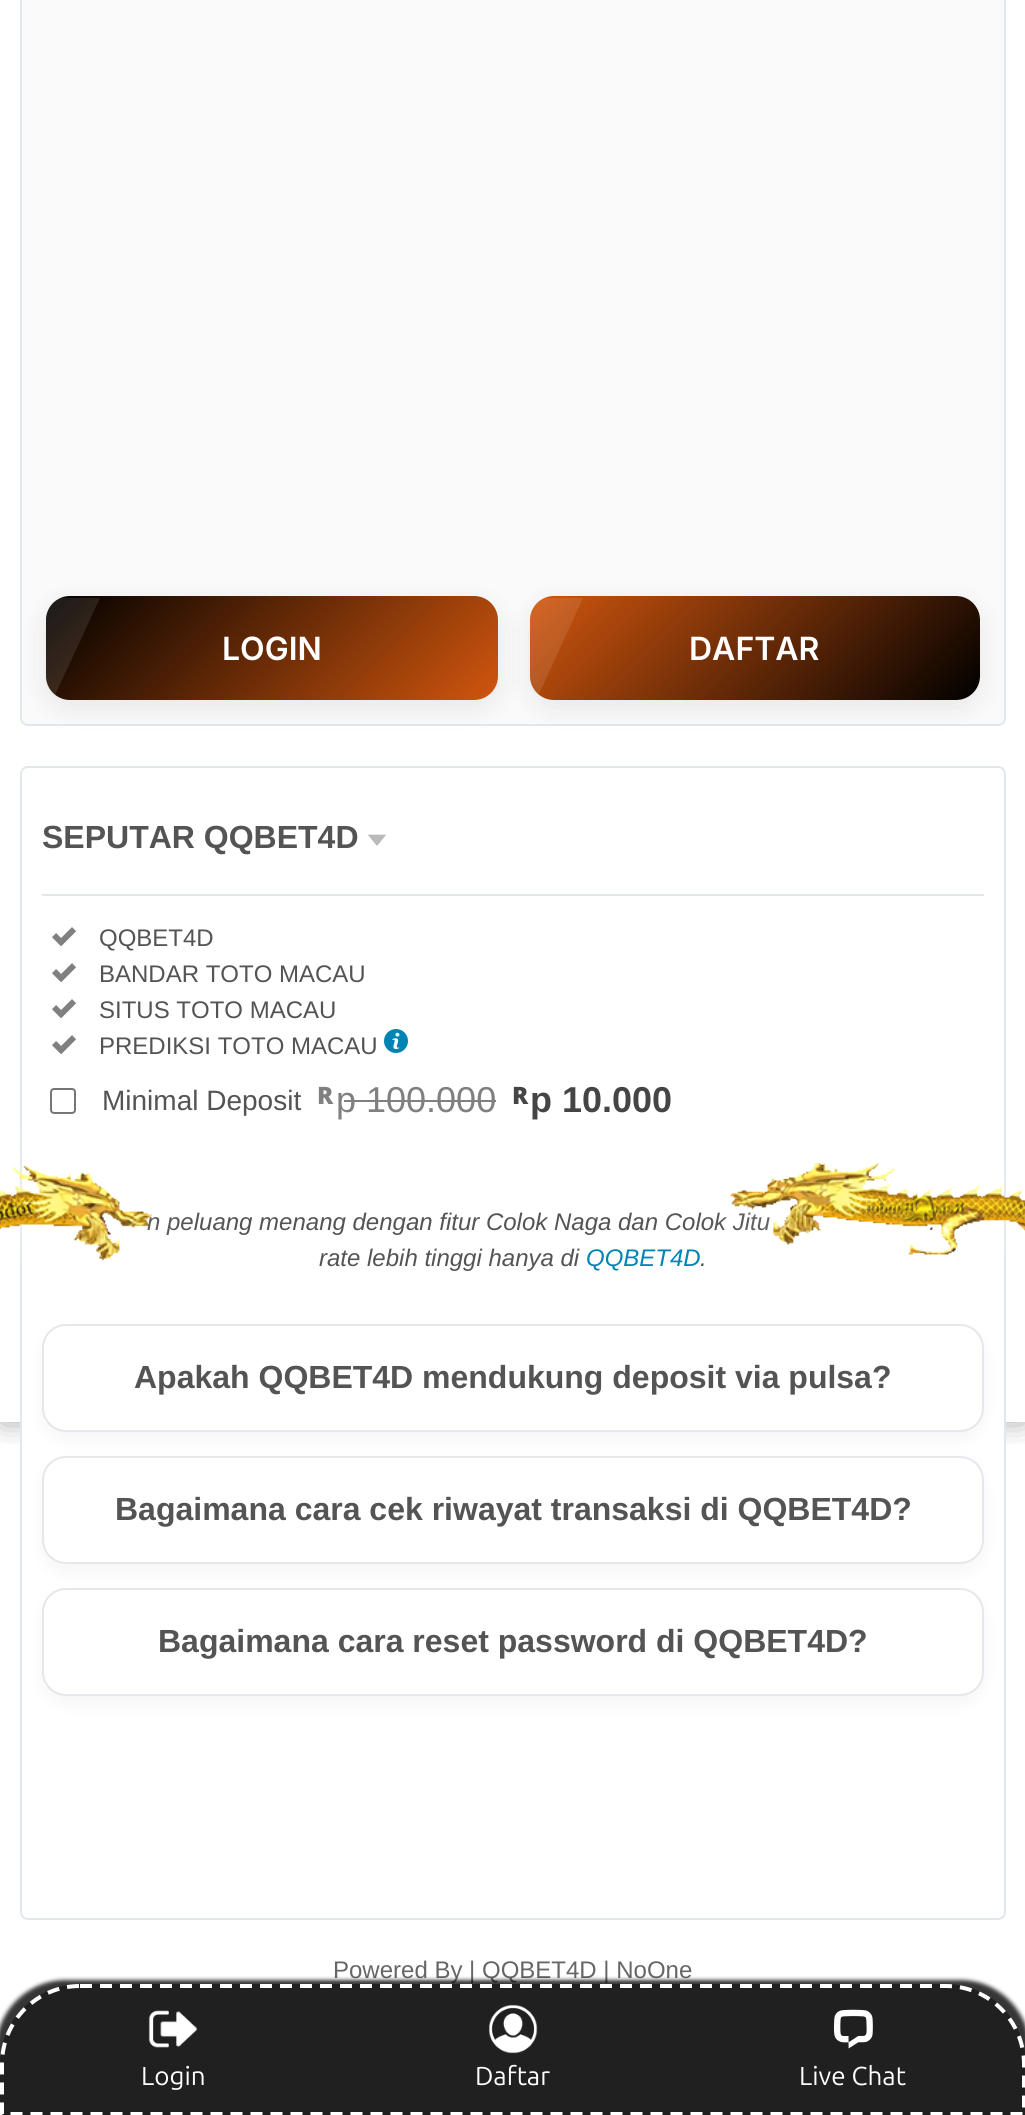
import math
import cairocffi as cairo

surface = cairo.ImageSurface(cairo.FORMAT_RGB24, 1025, 2115)
cr = cairo.Context(surface)
options = cairo.FontOptions()
options.set_hint_metrics(cairo.HINT_METRICS_OFF)
options.set_hint_style(cairo.HINT_STYLE_NONE)
cr.set_font_options(options)
cr.set_miter_limit(4)


def use_color(code):
    cr.set_source_rgb(*(v / 255 for v in bytes.fromhex(code[-6:])))


def round_rect(x, y, w, h, r):
    cr.new_sub_path()
    for i, (u, v) in enumerate([(x + w - r, y + h - r), (x + r, y + h - r), (x + r, y + r), (x + w - r, y + r)]):
        cr.arc(u, v, r, i * math.pi / 2, (i + 1) * math.pi / 2)
    cr.close_path()


def shadow(x, y, w, h, r, blur, alpha):
    cr.push_group_with_content(cairo.CONTENT_ALPHA)
    cr.set_operator(cairo.OPERATOR_SOURCE)
    for i in range(15, -16, -2):
        e = blur * i / 6
        if min(w, h) + 2 * e > 0:
            cr.set_source_rgba(0, 0, 0, alpha * math.erfc((i - 1) / 8.5) / 2)
            round_rect(x - e, y - e, w + 2 * e, h + 2 * e, max(0, min(r + e + blur * .6, min(w, h) / 2 + e)))
            cr.fill()
    cr.mask(cr.pop_group())


def picture(path, x, y, w, h):
    cr.save()
    cr.set_source_surface(cairo.ImageSurface.create_from_png(path), x, y)
    cr.rectangle(x, y, w, h)
    cr.fill()
    cr.restore()


use_color("#ffffff")
cr.paint()
cr.save()
cr.rectangle(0, 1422, 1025, 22)
cr.clip()
use_color("#000000")
shadow(2, -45, 1022, 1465, 0, 15, 0.4)
cr.restore()
use_color("#fafafa")
round_rect(21, -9, 984, 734, 7)
cr.fill_preserve()
use_color("#e1e8ed")
cr.stroke()
use_color("#000000")
shadow(46, 604, 452, 104, 24, 15, 0.08)
gradient = cairo.LinearGradient(133, 509, 411, 787)
gradient.add_color_stop_rgba(0, 0, 0, 0, 1)
gradient.add_color_stop_rgba(1, 0.82, 0.337, 0.055, 1)
cr.set_source(gradient)
round_rect(46, 596, 452, 104, 24)
cr.fill()
cr.set_source_rgba(1, 1, 1, 0.1)
cr.new_path()
cr.move_to(55, 695)
cr.curve_to(50, 691, 46, 684, 46, 676)
cr.line_to(46, 620)
cr.curve_to(46, 610, 52, 602, 60, 598)
cr.line_to(100, 598)
cr.close_path()
cr.fill()
cr.select_font_face("Inter SemiBold")
cr.set_font_size(32)
use_color("#ffffff")
cr.move_to(222, 660)
cr.show_text("LOGIN")
use_color("#000000")
shadow(530, 604, 450, 104, 24, 15, 0.08)
gradient = cairo.LinearGradient(617, 510, 894, 787)
gradient.add_color_stop_rgba(0, 0.82, 0.337, 0.055, 1)
gradient.add_color_stop_rgba(1, 0, 0, 0, 1)
cr.set_source(gradient)
round_rect(530, 596, 450, 104, 24)
cr.fill()
cr.set_source_rgba(1, 1, 1, 0.1)
cr.new_path()
cr.move_to(539, 694)
cr.curve_to(533, 690, 530, 683, 530, 676)
cr.line_to(530, 620)
cr.curve_to(530, 610, 536, 602, 544, 598)
cr.line_to(583, 598)
cr.close_path()
cr.fill()
use_color("#ffffff")
cr.move_to(689, 660)
cr.show_text("DAFTAR")
round_rect(21, 767, 984, 1152, 7)
cr.fill_preserve()
use_color("#e1e8ed")
cr.stroke()
cr.select_font_face("Liberation Sans", cairo.FONT_SLANT_NORMAL, cairo.FONT_WEIGHT_BOLD)
use_color("#545454")
cr.move_to(42, 848)
cr.show_text("SEPUTAR QQBET4D")
picture("img1.png", 368, 834, 18, 12)
use_color("#e1e8ed")
cr.rectangle(42, 894, 942, 2)
cr.fill()
picture("img2.png", 52, 927, 24, 20)
cr.select_font_face("Liberation Sans")
cr.set_font_size(24)
use_color("#545454")
cr.move_to(99, 946)
cr.show_text("QQBET4D")
picture("img2.png", 52, 963, 24, 20)
cr.move_to(99, 982)
cr.show_text("BANDAR TOTO MACAU")
picture("img2.png", 52, 999, 24, 20)
cr.move_to(99, 1018)
cr.show_text("SITUS TOTO MACAU")
picture("img2.png", 52, 1035, 24, 20)
cr.move_to(99, 1054)
cr.show_text("PREDIKSI TOTO MACAU")
picture("img3.png", 384, 1029, 24, 24)
round_rect(51, 1089, 24, 24, 3)
use_color("#767676")
cr.stroke()
cr.set_font_size(28)
use_color("#545454")
cr.move_to(102, 1110)
cr.show_text("Minimal Deposit")
cr.select_font_face("Noto Sans Black")
cr.set_font_size(24)
use_color("#808080")
cr.move_to(317, 1104)
cr.show_text("R")
cr.select_font_face("Liberation Sans")
cr.set_font_size(36)
cr.move_to(336, 1112)
cr.show_text("p 100.000")
cr.rectangle(344, 1100, 152, 2)
cr.fill()
cr.select_font_face("Noto Sans Black")
cr.set_font_size(24)
use_color("#454545")
cr.move_to(512, 1104)
cr.show_text("R")
cr.select_font_face("Liberation Sans", cairo.FONT_SLANT_NORMAL, cairo.FONT_WEIGHT_BOLD)
cr.set_font_size(36)
cr.move_to(530, 1112)
cr.show_text("p 10.000")
cr.select_font_face("Liberation Sans", cairo.FONT_SLANT_ITALIC)
cr.set_font_size(24)
use_color("#545454")
cr.move_to(147, 1230)
cr.show_text("n peluang menang dengan fitur Colok Naga dan Colok Jitu")
cr.move_to(929, 1230)
cr.show_text(".")
cr.move_to(319, 1266)
cr.show_text("rate lebih tinggi hanya di")
use_color("#0084b4")
cr.move_to(586, 1266)
cr.show_text("QQBET4D")
use_color("#545454")
cr.move_to(700, 1266)
cr.show_text(".")
use_color("#000000")
shadow(42, 1332, 942, 108, 24, 10, 0.04)
use_color("#ffffff")
round_rect(43, 1325, 940, 106, 23)
cr.fill_preserve()
use_color("#e5e7eb")
cr.stroke()
cr.select_font_face("Liberation Sans", cairo.FONT_SLANT_NORMAL, cairo.FONT_WEIGHT_BOLD)
cr.set_font_size(32)
use_color("#545454")
cr.move_to(134, 1388)
cr.show_text("Apakah QQBET4D mendukung deposit via pulsa?")
use_color("#000000")
shadow(42, 1464, 942, 108, 24, 10, 0.04)
use_color("#ffffff")
round_rect(43, 1457, 940, 106, 23)
cr.fill_preserve()
use_color("#e5e7eb")
cr.stroke()
use_color("#545454")
cr.move_to(115, 1520)
cr.show_text("Bagaimana cara cek riwayat transaksi di QQBET4D?")
use_color("#000000")
shadow(42, 1596, 942, 108, 24, 10, 0.04)
use_color("#ffffff")
round_rect(43, 1589, 940, 106, 23)
cr.fill_preserve()
use_color("#e5e7eb")
cr.stroke()
use_color("#545454")
cr.move_to(158, 1652)
cr.show_text("Bagaimana cara reset password di QQBET4D?")
cr.select_font_face("Liberation Sans")
cr.set_font_size(24)
use_color("#666666")
cr.move_to(333, 1978)
cr.show_text("Powered By | QQBET4D | NoOne")
picture("img4.png", 0, 1113, 185, 148)
picture("img5.png", 705, 1163, 320, 92)
use_color("#000000")
shadow(-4, 1980, 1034, 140, 84, 2, 0.79)
use_color("#202020")
cr.new_path()
cr.move_to(80, 1984)
cr.line_to(946, 1984)
cr.curve_to(990, 1984, 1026, 2020, 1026, 2064)
cr.line_to(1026, 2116)
cr.line_to(0, 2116)
cr.line_to(0, 2064)
cr.curve_to(0, 2020, 36, 1984, 80, 1984)
cr.close_path()
cr.fill()
cr.new_path()
cr.move_to(80, 1986)
cr.line_to(946, 1986)
cr.curve_to(989, 1986, 1024, 2021, 1024, 2064)
cr.line_to(1024, 2114)
cr.line_to(2, 2114)
cr.line_to(2, 2064)
cr.curve_to(2, 2021, 37, 1986, 80, 1986)
cr.close_path()
use_color("#ffffff")
cr.set_line_width(4)
cr.set_dash([12, 8])
cr.stroke()
picture("img6.png", 148, 2010, 50, 38)
cr.select_font_face("Ubuntu")
cr.set_font_size(26)
cr.move_to(141, 2085)
cr.show_text("Login")
picture("img7.png", 488, 2004, 50, 50)
cr.move_to(475, 2085)
cr.show_text("Daftar")
picture("img8.png", 833, 2009, 40, 40)
cr.move_to(799, 2085)
cr.show_text("Live Chat")
surface.write_to_png("result.png")
